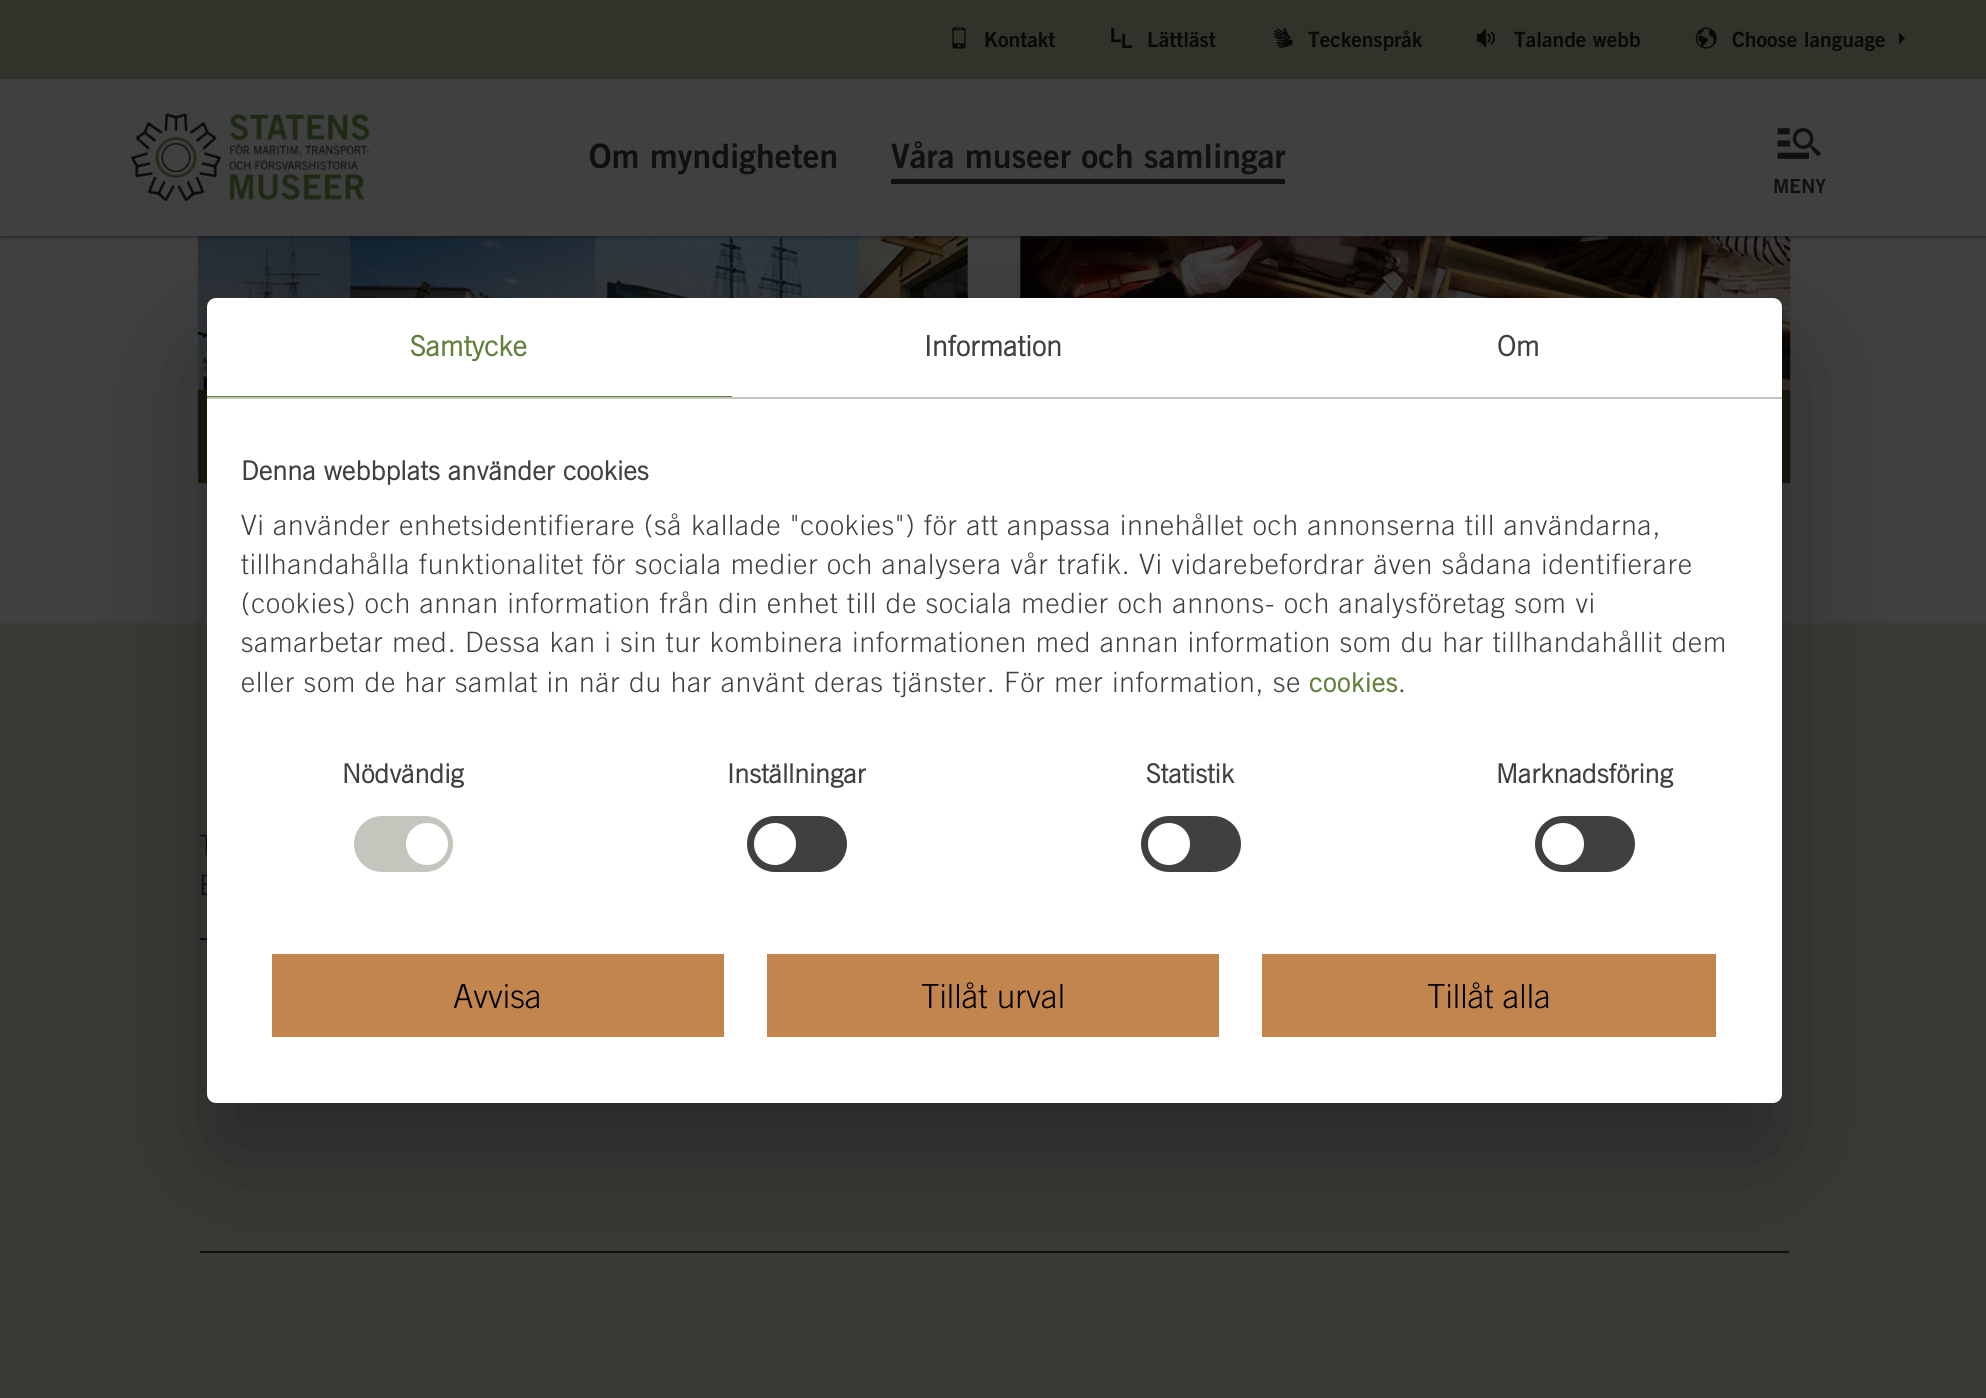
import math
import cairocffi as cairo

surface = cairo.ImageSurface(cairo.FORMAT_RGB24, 1986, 1398)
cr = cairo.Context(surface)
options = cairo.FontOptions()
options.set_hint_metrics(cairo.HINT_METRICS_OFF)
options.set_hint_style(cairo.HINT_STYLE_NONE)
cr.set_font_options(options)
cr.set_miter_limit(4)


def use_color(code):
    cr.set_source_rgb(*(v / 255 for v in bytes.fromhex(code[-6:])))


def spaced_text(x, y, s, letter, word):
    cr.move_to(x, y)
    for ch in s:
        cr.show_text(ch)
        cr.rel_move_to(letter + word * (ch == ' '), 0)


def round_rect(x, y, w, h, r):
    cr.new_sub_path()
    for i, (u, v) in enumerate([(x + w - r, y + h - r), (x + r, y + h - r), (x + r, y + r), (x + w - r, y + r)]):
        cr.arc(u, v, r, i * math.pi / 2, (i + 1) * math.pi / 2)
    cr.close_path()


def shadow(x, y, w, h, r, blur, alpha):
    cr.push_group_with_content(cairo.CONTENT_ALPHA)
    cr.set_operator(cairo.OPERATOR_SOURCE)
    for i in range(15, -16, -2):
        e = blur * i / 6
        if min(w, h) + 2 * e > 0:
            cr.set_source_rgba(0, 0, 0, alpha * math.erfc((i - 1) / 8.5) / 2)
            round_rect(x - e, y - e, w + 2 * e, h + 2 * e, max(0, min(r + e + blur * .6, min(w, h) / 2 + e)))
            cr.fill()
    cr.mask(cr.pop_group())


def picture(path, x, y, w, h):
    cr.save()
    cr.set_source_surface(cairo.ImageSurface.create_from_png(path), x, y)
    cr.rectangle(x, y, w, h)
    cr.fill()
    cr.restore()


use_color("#404040")
cr.paint()
picture("img8.png", 197, 236, 771, 237)
picture("img9.png", 1020, 236, 771, 248)
use_color("#101010")
shadow(0, 0, 1986, 236, 0, 2.5, 1)
use_color("#404040")
cr.rectangle(0, 79, 1986, 157)
cr.fill()
use_color("#2f3329")
cr.rectangle(0, 0, 1986, 79)
cr.fill()
picture("img1.png", 952, 27, 14, 22)
cr.select_font_face("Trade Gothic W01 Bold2", cairo.FONT_SLANT_NORMAL, cairo.FONT_WEIGHT_BOLD)
cr.set_font_size(21)
use_color("#090909")
cr.move_to(984, 47)
cr.show_text("Kontakt")
picture("img2.png", 1111, 28, 22, 20)
cr.move_to(1147, 47)
cr.show_text("Lättläst")
picture("img3.png", 1274, 27, 19, 22)
cr.move_to(1308, 47)
cr.show_text("Teckenspråk")
picture("img4.png", 1477, 28, 18, 20)
cr.move_to(1514, 47)
cr.show_text("Talande webb")
picture("img5.png", 1695, 27, 22, 22)
cr.move_to(1732, 47)
cr.show_text("Choose language")
cr.new_path()
cr.move_to(1899, 44.5)
cr.line_to(1905, 38.5)
cr.line_to(1899, 32.5)
cr.close_path()
cr.fill()
picture("img6.png", 131, 113, 239, 89)
cr.set_font_size(33.6)
use_color("#101010")
cr.move_to(589, 168)
cr.show_text("Om myndigheten")
cr.rectangle(891, 179, 394, 5)
cr.fill()
cr.move_to(891, 168)
cr.show_text("Våra museer och samlingar")
picture("img7.png", 1777, 128, 44, 31)
cr.set_font_size(19.5)
cr.move_to(1773, 193)
cr.show_text("MENY")
use_color("#161c0d")
cr.rectangle(198, 390, 9, 93)
cr.fill()
cr.rectangle(1782, 390, 8, 93)
cr.fill()
use_color("#393b37")
cr.rectangle(0, 623, 1986, 775)
cr.fill()
use_color("#101010")
cr.rectangle(200, 1251, 1589, 2)
cr.fill()
cr.select_font_face("Trade Gothic Light")
cr.set_font_size(28)
cr.move_to(199, 855)
cr.show_text("T")
cr.move_to(199, 895)
cr.show_text("E")
cr.rectangle(200, 938, 7, 2)
cr.fill()
use_color("#000000")
shadow(207, 354, 1575, 805, 9, 59.5, 0.3)
use_color("#ffffff")
round_rect(207, 298, 1575, 805, 9)
cr.fill()
use_color("#c3c6bd")
cr.rectangle(207, 397, 1575, 2)
cr.fill()
use_color("#647f3d")
cr.rectangle(207, 396, 525, 1)
cr.fill()
cr.select_font_face("Trade Gothic", cairo.FONT_SLANT_NORMAL, cairo.FONT_WEIGHT_BOLD)
spaced_text(410, 356, "Samtycke", 0.25, 0)
use_color("#404040")
spaced_text(924, 356, "Information", 0.25, 0)
spaced_text(1497, 356, "Om", 0.25, 0)
cr.set_font_size(26.25)
spaced_text(241, 480, "Denna webbplats använder cookies", 0.45, 0)
cr.select_font_face("Trade Gothic Light")
cr.set_font_size(28)
spaced_text(241, 535, "Vi använder enhetsidentifierare (så kallade \"cookies\") för att anpassa innehållet och annonserna till användarna,", 0.88, 0)
spaced_text(241, 574, "tillhandahålla funktionalitet för sociala medier och analysera vår trafik. Vi vidarebefordrar även sådana identifierare", 0.88, 0)
spaced_text(241, 613, "(cookies) och annan information från din enhet till de sociala medier och annons- och analysföretag som vi", 0.88, 0)
spaced_text(241, 652, "samarbetar med. Dessa kan i sin tur kombinera informationen med annan information som du har tillhandahållit dem", 0.88, 0)
spaced_text(241, 692, "eller som de har samlat in när du har använt deras tjänster. För mer information, se", 0.88, 0)
cr.select_font_face("Trade Gothic", cairo.FONT_SLANT_NORMAL, cairo.FONT_WEIGHT_BOLD)
cr.set_font_size(26.25)
use_color("#647f3d")
spaced_text(1309, 692, "cookies", 0.88, 0)
cr.select_font_face("Trade Gothic Light")
cr.set_font_size(28)
use_color("#404040")
spaced_text(1398, 692, ".", 0.88, 0)
cr.select_font_face("Trade Gothic", cairo.FONT_SLANT_NORMAL, cairo.FONT_WEIGHT_BOLD)
cr.set_font_size(26.25)
spaced_text(342, 783, "Nödvändig", 0.25, 0)
use_color("#c3c6bd")
round_rect(354, 816, 99, 56, 28)
cr.fill()
use_color("#ffffff")
cr.arc(427, 844, 21, 0, 2 * math.pi)
cr.fill()
use_color("#404040")
spaced_text(727, 783, "Inställningar", 0.25, 0)
round_rect(747, 816, 100, 56, 28)
cr.fill()
use_color("#ffffff")
cr.arc(775, 844, 21, 0, 2 * math.pi)
cr.fill()
use_color("#404040")
spaced_text(1146, 783, "Statistik", 0.25, 0)
round_rect(1141, 816, 100, 56, 28)
cr.fill()
use_color("#ffffff")
cr.arc(1169, 844, 21, 0, 2 * math.pi)
cr.fill()
use_color("#404040")
spaced_text(1496, 783, "Marknadsföring", 0.25, 0)
round_rect(1535, 816, 100, 56, 28)
cr.fill()
use_color("#ffffff")
cr.arc(1563, 844, 21, 0, 2 * math.pi)
cr.fill()
use_color("#c1854d")
cr.rectangle(272, 954, 452, 83)
cr.fill()
cr.select_font_face("Trade Gothic Light")
cr.set_font_size(33.25)
use_color("#000000")
cr.move_to(453, 1008)
cr.show_text("Avvisa")
use_color("#c1854d")
cr.rectangle(767, 954, 452, 83)
cr.fill()
use_color("#000000")
cr.move_to(921, 1008)
cr.show_text("Tillåt urval")
use_color("#c1854d")
cr.rectangle(1262, 954, 454, 83)
cr.fill()
use_color("#000000")
cr.move_to(1427, 1008)
cr.show_text("Tillåt alla")
surface.write_to_png("result.png")
